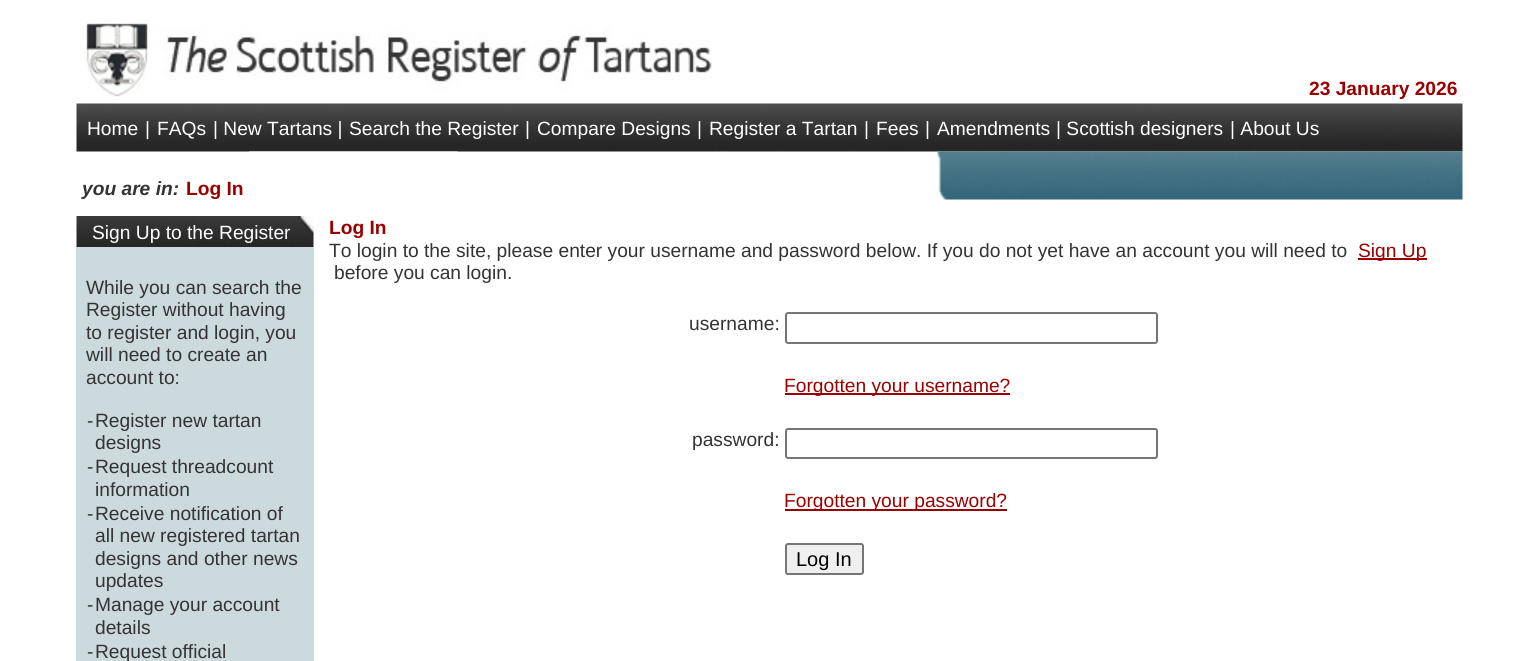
import math
import cairocffi as cairo

surface = cairo.ImageSurface(cairo.FORMAT_RGB24, 1538, 661)
cr = cairo.Context(surface)
options = cairo.FontOptions()
options.set_hint_metrics(cairo.HINT_METRICS_OFF)
options.set_hint_style(cairo.HINT_STYLE_NONE)
cr.set_font_options(options)
cr.set_miter_limit(4)


def use_color(code):
    cr.set_source_rgb(*(v / 255 for v in bytes.fromhex(code[-6:])))


def round_rect(x, y, w, h, r):
    cr.new_sub_path()
    for i, (u, v) in enumerate([(x + w - r, y + h - r), (x + r, y + h - r), (x + r, y + r), (x + w - r, y + r)]):
        cr.arc(u, v, r, i * math.pi / 2, (i + 1) * math.pi / 2)
    cr.close_path()


def picture(path, x, y, w, h):
    cr.save()
    cr.set_source_surface(cairo.ImageSurface.create_from_png(path), x, y)
    cr.rectangle(x, y, w, h)
    cr.fill()
    cr.restore()


use_color("#ffffff")
cr.paint()
picture("img1.png", 86, 20, 626, 77)
cr.select_font_face("Liberation Sans", cairo.FONT_SLANT_NORMAL, cairo.FONT_WEIGHT_BOLD)
cr.set_font_size(19.2)
use_color("#990000")
cr.move_to(1309, 95)
cr.show_text("23 January 2026")
picture("img2.png", 76, 103, 1387, 49)
cr.select_font_face("Liberation Sans")
use_color("#ffffff")
cr.move_to(87, 135)
cr.show_text("Home")
cr.move_to(145, 135)
cr.show_text("|")
cr.move_to(157, 135)
cr.show_text("FAQs")
cr.move_to(213, 135)
cr.show_text("| New Tartans |")
cr.move_to(349, 135)
cr.show_text("Search the Register")
cr.move_to(525, 135)
cr.show_text("|")
cr.move_to(537, 135)
cr.show_text("Compare Designs")
cr.move_to(697, 135)
cr.show_text("|")
cr.move_to(709, 135)
cr.show_text("Register a Tartan")
cr.move_to(864, 135)
cr.show_text("|")
cr.move_to(876, 135)
cr.show_text("Fees")
cr.move_to(925, 135)
cr.show_text("|")
cr.move_to(937, 135)
cr.show_text("Amendments")
cr.move_to(1056, 135)
cr.show_text("| Scottish designers")
cr.move_to(1230, 135)
cr.show_text("| About Us")
picture("img3.png", 249, 151, 209, 1)
cr.select_font_face("Liberation Sans", cairo.FONT_SLANT_ITALIC, cairo.FONT_WEIGHT_BOLD)
use_color("#333333")
cr.move_to(82, 195)
cr.show_text("you are in:")
cr.select_font_face("Liberation Sans", cairo.FONT_SLANT_NORMAL, cairo.FONT_WEIGHT_BOLD)
use_color("#990000")
cr.move_to(186, 195)
cr.show_text("Log In")
picture("img4.png", 937, 151, 526, 49)
picture("img5.png", 76, 216, 238, 31)
cr.select_font_face("Liberation Sans")
use_color("#ffffff")
cr.move_to(92, 239)
cr.show_text("Sign Up to the Register")
use_color("#ccdadd")
cr.rectangle(76, 247, 238, 414)
cr.fill()
use_color("#333333")
cr.move_to(86, 294)
cr.show_text("While you can search the")
cr.move_to(86, 316)
cr.show_text("Register without having")
cr.move_to(86, 339)
cr.show_text("to register and login, you")
cr.move_to(86, 361)
cr.show_text("will need to create an")
cr.move_to(86, 384)
cr.show_text("account to:")
cr.move_to(87, 427)
cr.show_text("-")
cr.move_to(95, 427)
cr.show_text("Register new tartan")
cr.move_to(95, 449)
cr.show_text("designs")
cr.move_to(87, 473)
cr.show_text("-")
cr.move_to(95, 473)
cr.show_text("Request threadcount")
cr.move_to(95, 496)
cr.show_text("information")
cr.move_to(87, 520)
cr.show_text("-")
cr.move_to(95, 520)
cr.show_text("Receive notification of")
cr.move_to(95, 542)
cr.show_text("all new registered tartan")
cr.move_to(95, 565)
cr.show_text("designs and other news")
cr.move_to(95, 587)
cr.show_text("updates")
cr.move_to(87, 611)
cr.show_text("-")
cr.move_to(95, 611)
cr.show_text("Manage your account")
cr.move_to(95, 634)
cr.show_text("details")
cr.move_to(87, 658)
cr.show_text("-")
cr.move_to(95, 658)
cr.show_text("Request official")
cr.select_font_face("Liberation Sans", cairo.FONT_SLANT_NORMAL, cairo.FONT_WEIGHT_BOLD)
use_color("#990000")
cr.move_to(329, 234)
cr.show_text("Log In")
cr.select_font_face("Liberation Sans")
use_color("#333333")
cr.move_to(329, 257)
cr.show_text("To login to the site, please enter your username and password below. If you do not yet have an account you will need to")
use_color("#990000")
cr.rectangle(1358, 258, 69, 2)
cr.fill()
cr.move_to(1358, 257)
cr.show_text("Sign Up")
use_color("#333333")
cr.move_to(334, 279)
cr.show_text("before you can login.")
cr.move_to(689, 330)
cr.show_text("username:")
round_rect(786, 313, 371, 30, 2)
use_color("#767676")
cr.stroke()
use_color("#990000")
cr.rectangle(785, 393, 225, 2)
cr.fill()
cr.move_to(784, 392)
cr.show_text("Forgotten your username?")
use_color("#333333")
cr.move_to(692, 446)
cr.show_text("password:")
round_rect(786, 429, 371, 29, 2)
use_color("#767676")
cr.stroke()
use_color("#990000")
cr.rectangle(785, 509, 222, 2)
cr.fill()
cr.move_to(784, 507)
cr.show_text("Forgotten your password?")
use_color("#efefef")
round_rect(786, 544, 77, 30, 2)
cr.fill_preserve()
use_color("#767676")
cr.stroke()
cr.set_font_size(20)
use_color("#000000")
cr.move_to(796, 566)
cr.show_text("Log In")
surface.write_to_png("result.png")
